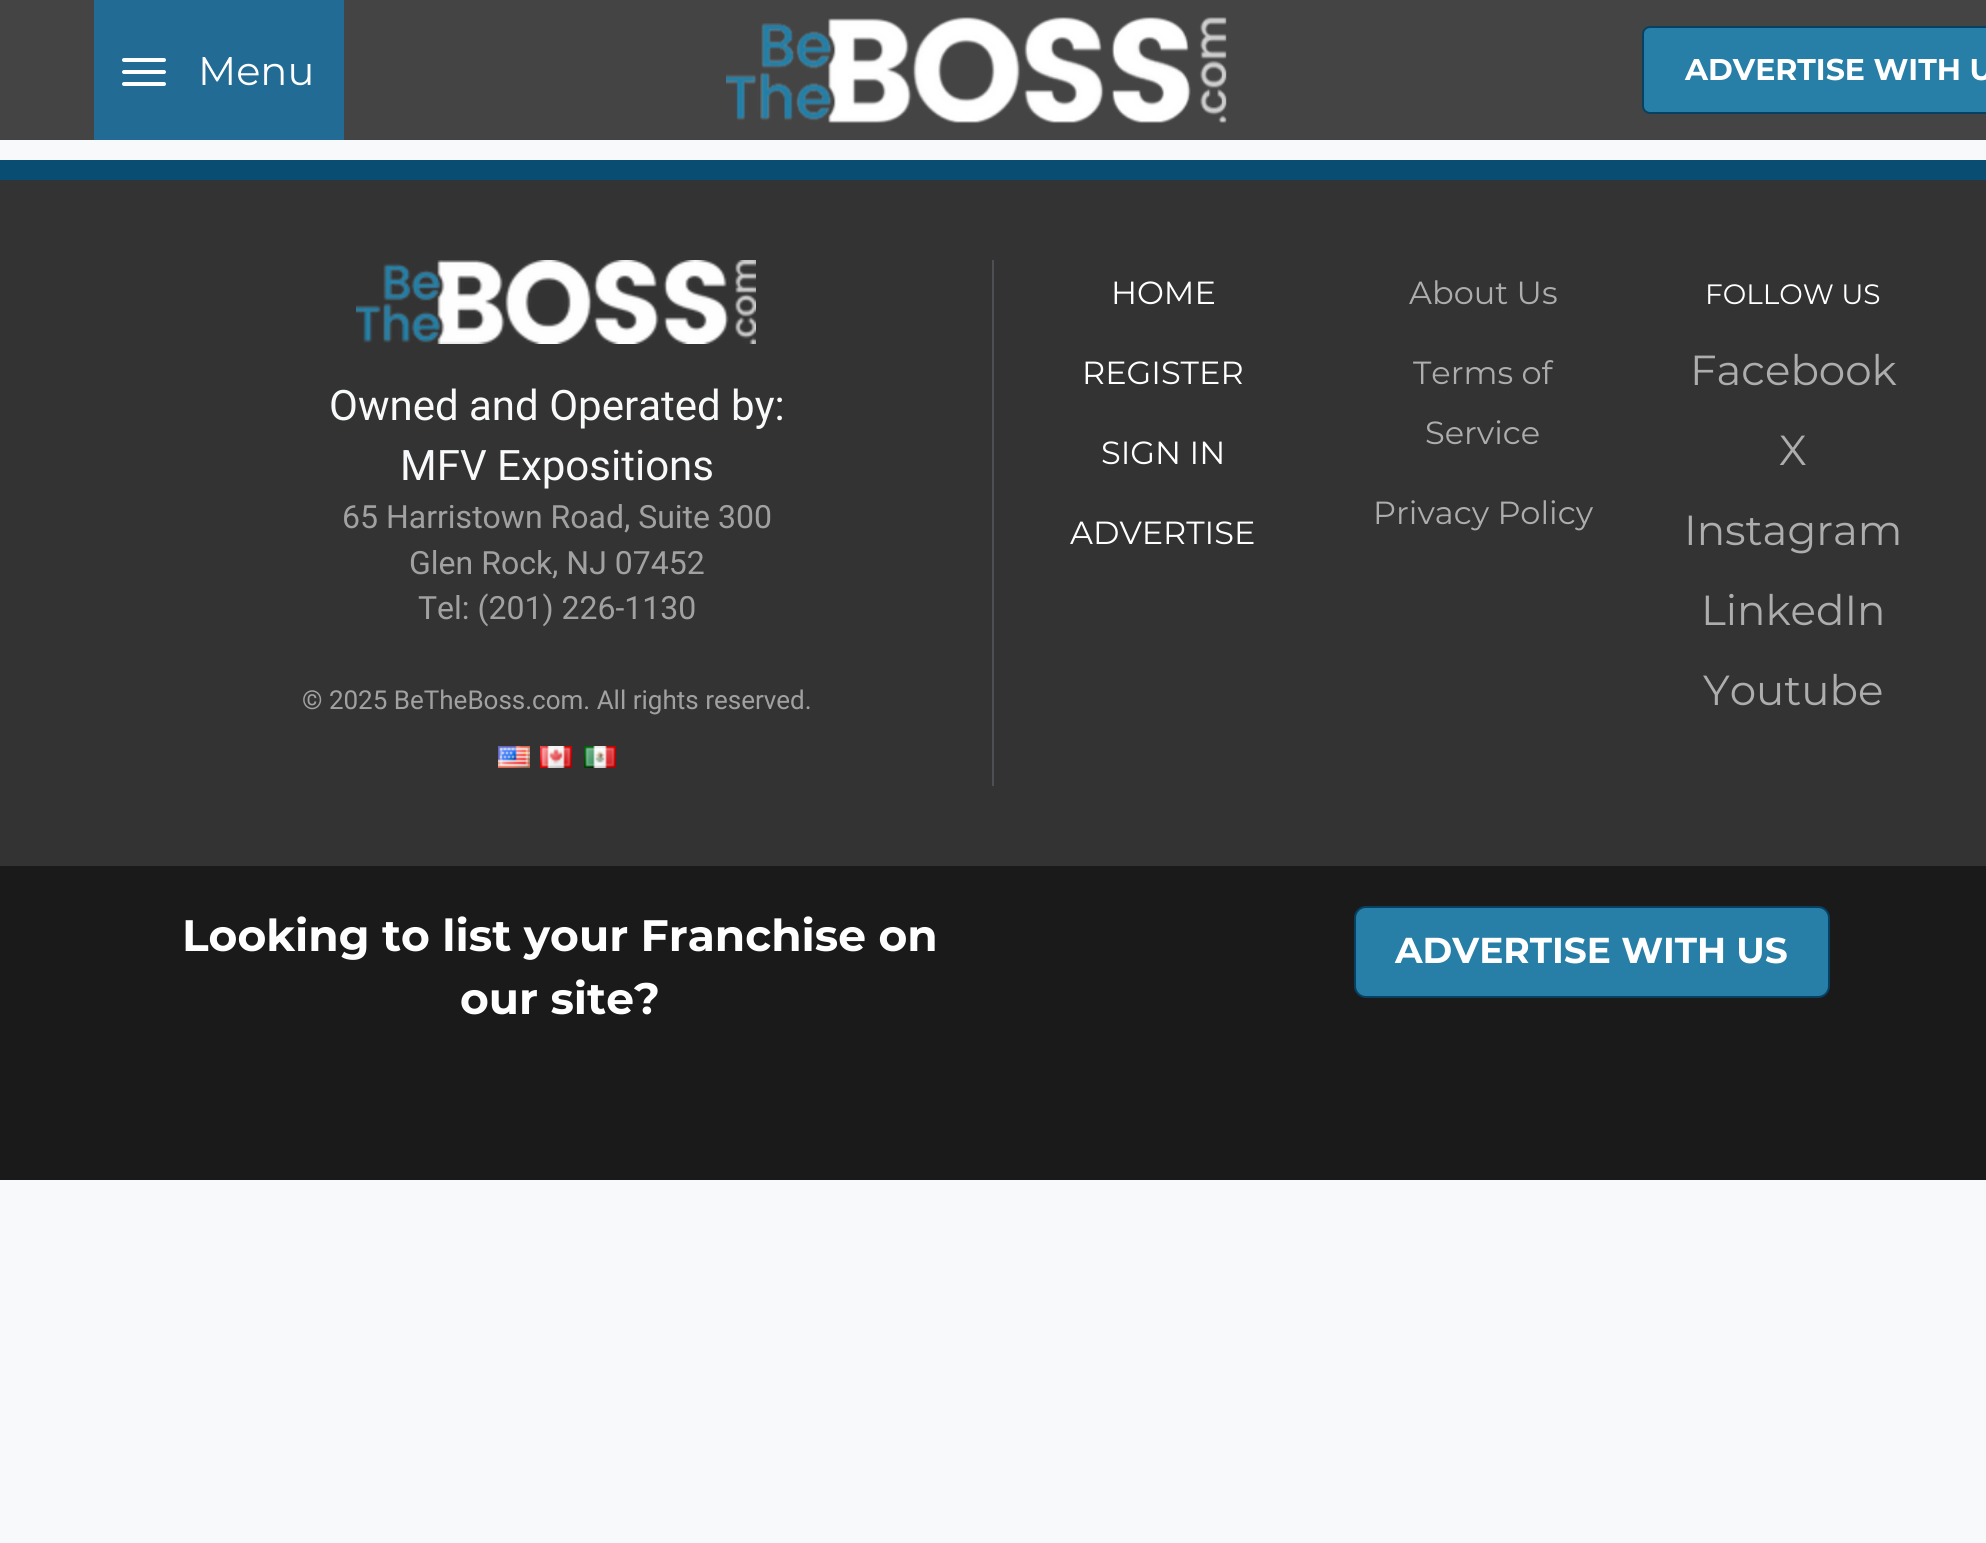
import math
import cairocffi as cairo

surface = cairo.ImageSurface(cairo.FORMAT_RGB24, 1986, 1543)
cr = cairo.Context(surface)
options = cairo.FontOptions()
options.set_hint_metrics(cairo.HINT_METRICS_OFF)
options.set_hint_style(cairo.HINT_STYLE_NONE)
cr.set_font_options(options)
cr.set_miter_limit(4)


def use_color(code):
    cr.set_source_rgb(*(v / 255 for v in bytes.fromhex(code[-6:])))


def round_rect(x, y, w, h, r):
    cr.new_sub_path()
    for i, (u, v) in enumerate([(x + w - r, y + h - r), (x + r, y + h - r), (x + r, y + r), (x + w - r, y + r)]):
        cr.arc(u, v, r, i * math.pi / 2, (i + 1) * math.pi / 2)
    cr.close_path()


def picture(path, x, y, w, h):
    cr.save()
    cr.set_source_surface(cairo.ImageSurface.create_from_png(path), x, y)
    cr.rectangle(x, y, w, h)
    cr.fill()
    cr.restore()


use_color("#f8f9fa")
cr.paint()
use_color("#444444")
cr.rectangle(0, 0, 1986, 140)
cr.fill()
use_color("#216b95")
cr.rectangle(94, 0, 250, 140)
cr.fill()
use_color("#ffffff")
round_rect(122, 58, 44, 4, 2)
cr.fill()
round_rect(122, 70, 44, 4, 2)
cr.fill()
round_rect(122, 82, 44, 4, 2)
cr.fill()
cr.select_font_face("Montserrat")
cr.set_font_size(40)
cr.move_to(198, 85)
cr.show_text("Menu")
picture("img1.png", 726, 17, 501, 107)
use_color("#277ea6")
round_rect(1643, 27, 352, 86, 7)
cr.fill_preserve()
use_color("#074161")
cr.stroke()
cr.select_font_face("Montserrat", cairo.FONT_SLANT_NORMAL, cairo.FONT_WEIGHT_BOLD)
cr.set_font_size(30)
use_color("#ffffff")
cr.move_to(1685, 80)
cr.show_text("ADVERTISE WITH U")
use_color("#333333")
cr.rectangle(0, 180, 1986, 686)
cr.fill()
use_color("#094d73")
cr.rectangle(0, 160, 1986, 20)
cr.fill()
use_color("#4d4f53")
cr.rectangle(992, 260, 2, 526)
cr.fill()
picture("img2.png", 356, 260, 400, 84)
cr.select_font_face("Roboto")
cr.set_font_size(42)
use_color("#f8f9fa")
cr.move_to(329, 420)
cr.show_text("Owned and Operated by:")
cr.move_to(400, 480)
cr.show_text("MFV Expositions")
cr.set_font_size(32)
use_color("#a1a1a1")
cr.move_to(342, 528)
cr.show_text("65 Harristown Road, Suite 300")
cr.move_to(409, 574)
cr.show_text("Glen Rock, NJ 07452")
cr.move_to(418, 619)
cr.show_text("Tel: (201) 226-1130")
cr.set_font_size(26)
cr.move_to(302, 709)
cr.show_text("© 2025 BeTheBoss.com. All rights reserved.")
picture("img3.png", 498, 746, 32, 22)
picture("img4.png", 540, 746, 32, 22)
picture("img5.png", 584, 746, 32, 22)
cr.select_font_face("Montserrat")
cr.set_font_size(32)
use_color("#ffffff")
cr.move_to(1111, 304)
cr.show_text("HOME")
cr.move_to(1082, 384)
cr.show_text("REGISTER")
cr.move_to(1101, 464)
cr.show_text("SIGN IN")
cr.move_to(1070, 544)
cr.show_text("ADVERTISE")
use_color("#adadad")
cr.move_to(1409, 304)
cr.show_text("About Us")
cr.move_to(1413, 384)
cr.show_text("Terms of")
cr.move_to(1425, 444)
cr.show_text("Service")
cr.move_to(1373, 524)
cr.show_text("Privacy Policy")
cr.set_font_size(28)
use_color("#ffffff")
cr.move_to(1705, 304)
cr.show_text("FOLLOW US")
cr.set_font_size(42)
use_color("#adadad")
cr.move_to(1690, 385)
cr.show_text("Facebook")
cr.move_to(1779, 465)
cr.show_text("X")
cr.move_to(1684, 545)
cr.show_text("Instagram")
cr.move_to(1701, 625)
cr.show_text("LinkedIn")
cr.move_to(1703, 705)
cr.show_text("Youtube")
use_color("#1a1a1a")
cr.rectangle(0, 866, 1986, 314)
cr.fill()
cr.select_font_face("Montserrat", cairo.FONT_SLANT_NORMAL, cairo.FONT_WEIGHT_BOLD)
cr.set_font_size(44)
use_color("#ffffff")
cr.move_to(182, 951)
cr.show_text("Looking to list your Franchise on")
cr.move_to(460, 1014)
cr.show_text("our site?")
use_color("#277ea6")
round_rect(1355, 907, 474, 90, 11)
cr.fill_preserve()
use_color("#074161")
cr.stroke()
cr.set_font_size(36)
use_color("#ffffff")
cr.move_to(1395, 963)
cr.show_text("ADVERTISE WITH US")
surface.write_to_png("result.png")
